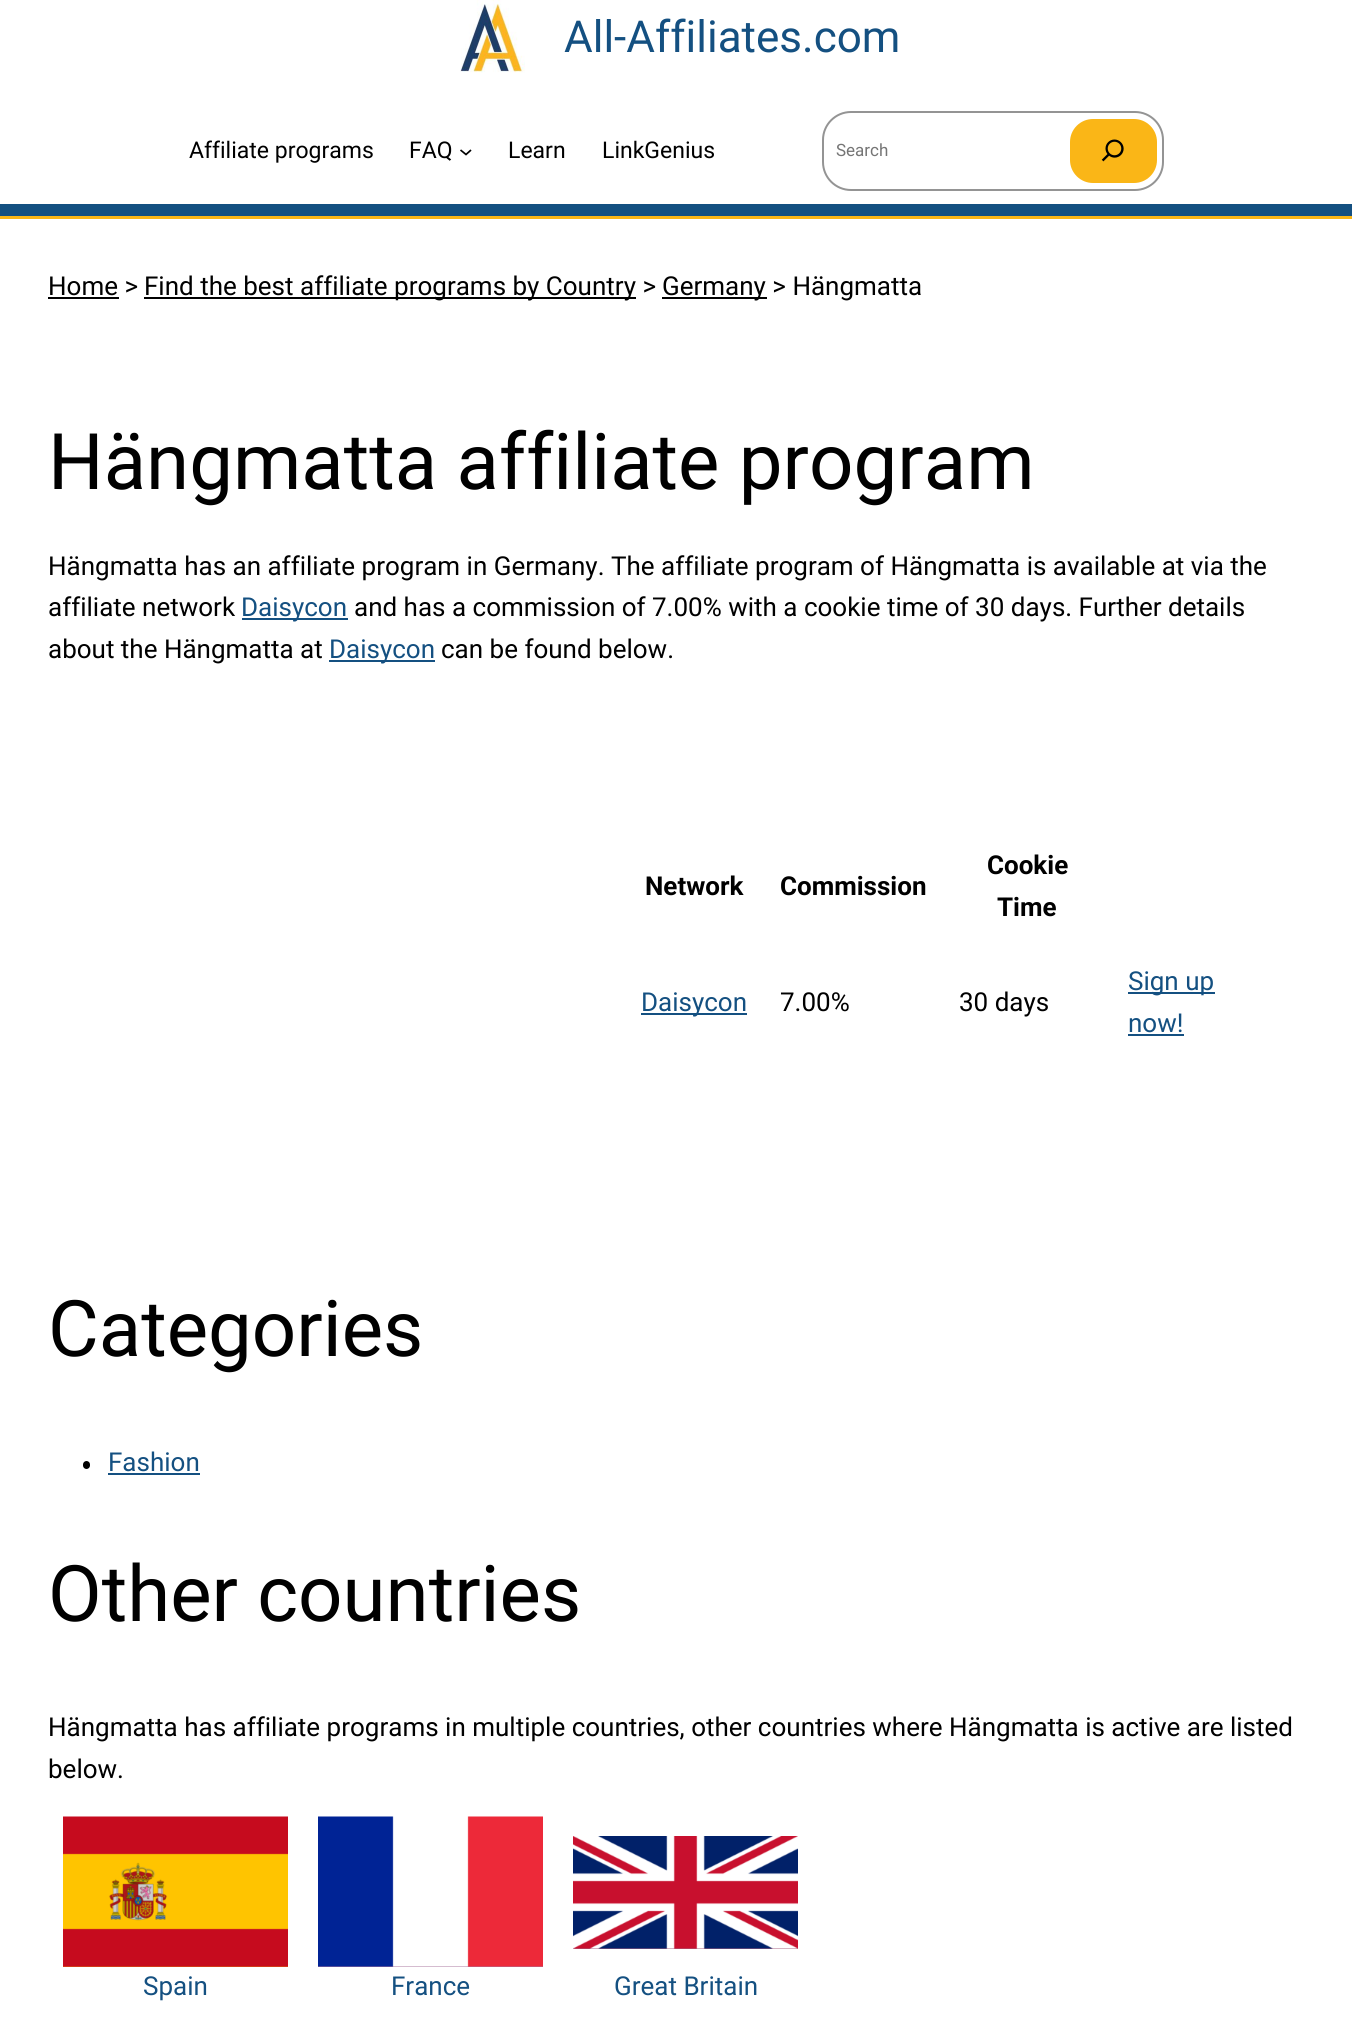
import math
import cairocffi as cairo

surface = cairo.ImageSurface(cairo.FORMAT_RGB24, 1352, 2021)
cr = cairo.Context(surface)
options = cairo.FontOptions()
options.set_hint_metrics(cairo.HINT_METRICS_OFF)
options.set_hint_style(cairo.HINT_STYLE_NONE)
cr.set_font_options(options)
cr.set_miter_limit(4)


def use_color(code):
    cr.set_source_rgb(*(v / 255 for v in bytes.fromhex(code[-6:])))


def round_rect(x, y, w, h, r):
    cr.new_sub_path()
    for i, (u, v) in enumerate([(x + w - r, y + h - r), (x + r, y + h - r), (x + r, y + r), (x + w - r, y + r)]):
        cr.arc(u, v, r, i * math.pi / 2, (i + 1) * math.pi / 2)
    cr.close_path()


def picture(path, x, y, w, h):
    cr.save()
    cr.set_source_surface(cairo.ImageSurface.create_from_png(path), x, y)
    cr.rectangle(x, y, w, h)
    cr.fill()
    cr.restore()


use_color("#ffffff")
cr.paint()
picture("img1.png", 460, 0, 65, 73)
cr.select_font_face("Roboto")
cr.set_font_size(44)
use_color("#145081")
cr.move_to(564, 52)
cr.show_text("All-Affiliates.com")
cr.set_font_size(23)
use_color("#000000")
cr.move_to(189, 158)
cr.show_text("Affiliate programs")
cr.move_to(409, 158)
cr.show_text("FAQ")
cr.new_path()
cr.move_to(460.5, 150)
cr.line_to(466, 154.5)
cr.line_to(471, 150)
cr.set_line_width(1.7)
cr.stroke()
cr.move_to(508, 158)
cr.show_text("Learn")
cr.move_to(602, 158)
cr.show_text("LinkGenius")
round_rect(823, 112, 340, 78, 28)
use_color("#949494")
cr.set_line_width(2)
cr.stroke()
cr.set_font_size(17)
use_color("#757575")
cr.move_to(836, 156)
cr.show_text("Search")
use_color("#fab617")
round_rect(1070, 119, 87, 64, 23)
cr.fill()
picture("img2.png", 1101, 139, 23, 23)
use_color("#145081")
cr.rectangle(0, 204, 1352, 12)
cr.fill()
use_color("#fab617")
cr.rectangle(0, 216, 1352, 3)
cr.fill()
cr.set_font_size(26)
use_color("#000000")
cr.move_to(48, 295)
cr.show_text("Home >")
cr.rectangle(48, 297, 71, 2)
cr.fill()
cr.rectangle(144, 297, 492, 2)
cr.fill()
cr.move_to(144, 295)
cr.show_text("Find the best affiliate programs by Country >")
cr.rectangle(662, 297, 105, 2)
cr.fill()
cr.move_to(662, 295)
cr.show_text("Germany > Hängmatta")
cr.set_font_size(78)
cr.move_to(48, 489)
cr.show_text("Hängmatta affiliate program")
cr.set_font_size(26)
cr.move_to(48, 575)
cr.show_text("Hängmatta has an affiliate program in Germany. The affiliate program of Hängmatta is available at via the")
cr.move_to(48, 616)
cr.show_text("affiliate network")
use_color("#145081")
cr.rectangle(242, 618, 106, 2)
cr.fill()
cr.move_to(241, 616)
cr.show_text("Daisycon")
use_color("#000000")
cr.move_to(354, 616)
cr.show_text("and has a commission of 7.00% with a cookie time of 30 days. Further details")
cr.move_to(48, 658)
cr.show_text("about the Hängmatta at")
use_color("#145081")
cr.rectangle(329, 660, 106, 2)
cr.fill()
cr.move_to(329, 658)
cr.show_text("Daisycon")
use_color("#000000")
cr.move_to(441, 658)
cr.show_text("can be found below.")
cr.select_font_face("Roboto", cairo.FONT_SLANT_NORMAL, cairo.FONT_WEIGHT_BOLD)
cr.move_to(645, 895)
cr.show_text("Network")
cr.move_to(780, 895)
cr.show_text("Commission")
cr.move_to(987, 874)
cr.show_text("Cookie")
cr.move_to(997, 916)
cr.show_text("Time")
use_color("#145081")
cr.rectangle(641, 1013, 106, 2)
cr.fill()
cr.select_font_face("Roboto")
cr.move_to(641, 1011)
cr.show_text("Daisycon")
use_color("#000000")
cr.move_to(780, 1011)
cr.show_text("7.00%")
cr.move_to(959, 1011)
cr.show_text("30 days")
use_color("#145081")
cr.rectangle(1128, 992, 87, 2)
cr.fill()
cr.move_to(1128, 990)
cr.show_text("Sign up")
cr.move_to(1128, 1032)
cr.show_text("now!")
cr.rectangle(1128, 1034, 56, 2)
cr.fill()
cr.set_font_size(78)
use_color("#000000")
cr.move_to(48, 1356)
cr.show_text("Categories")
round_rect(83, 1461, 7, 8, 3.5)
cr.fill()
cr.set_font_size(26)
use_color("#145081")
cr.move_to(108, 1471)
cr.show_text("Fashion")
cr.rectangle(108, 1473, 92, 2)
cr.fill()
cr.set_font_size(78)
use_color("#000000")
cr.move_to(48, 1621)
cr.show_text("Other countries")
cr.set_font_size(26)
cr.move_to(48, 1736)
cr.show_text("Hängmatta has affiliate programs in multiple countries, other countries where Hängmatta is active are listed")
cr.move_to(48, 1778)
cr.show_text("below.")
use_color("#df6c12")
cr.rectangle(63, 1966, 225, 1)
cr.fill()
picture("img3.png", 63, 1816, 225, 151)
use_color("#145081")
cr.move_to(143, 1995)
cr.show_text("Spain")
use_color("#aa79a1")
cr.rectangle(318, 1966, 225, 1)
cr.fill()
picture("img4.png", 318, 1816, 225, 151)
use_color("#145081")
cr.move_to(391, 1995)
cr.show_text("France")
use_color("#a86684")
cr.rectangle(573, 1948, 225, 1)
cr.fill()
picture("img5.png", 573, 1836, 225, 113)
use_color("#145081")
cr.move_to(614, 1995)
cr.show_text("Great Britain")
surface.write_to_png("result.png")
